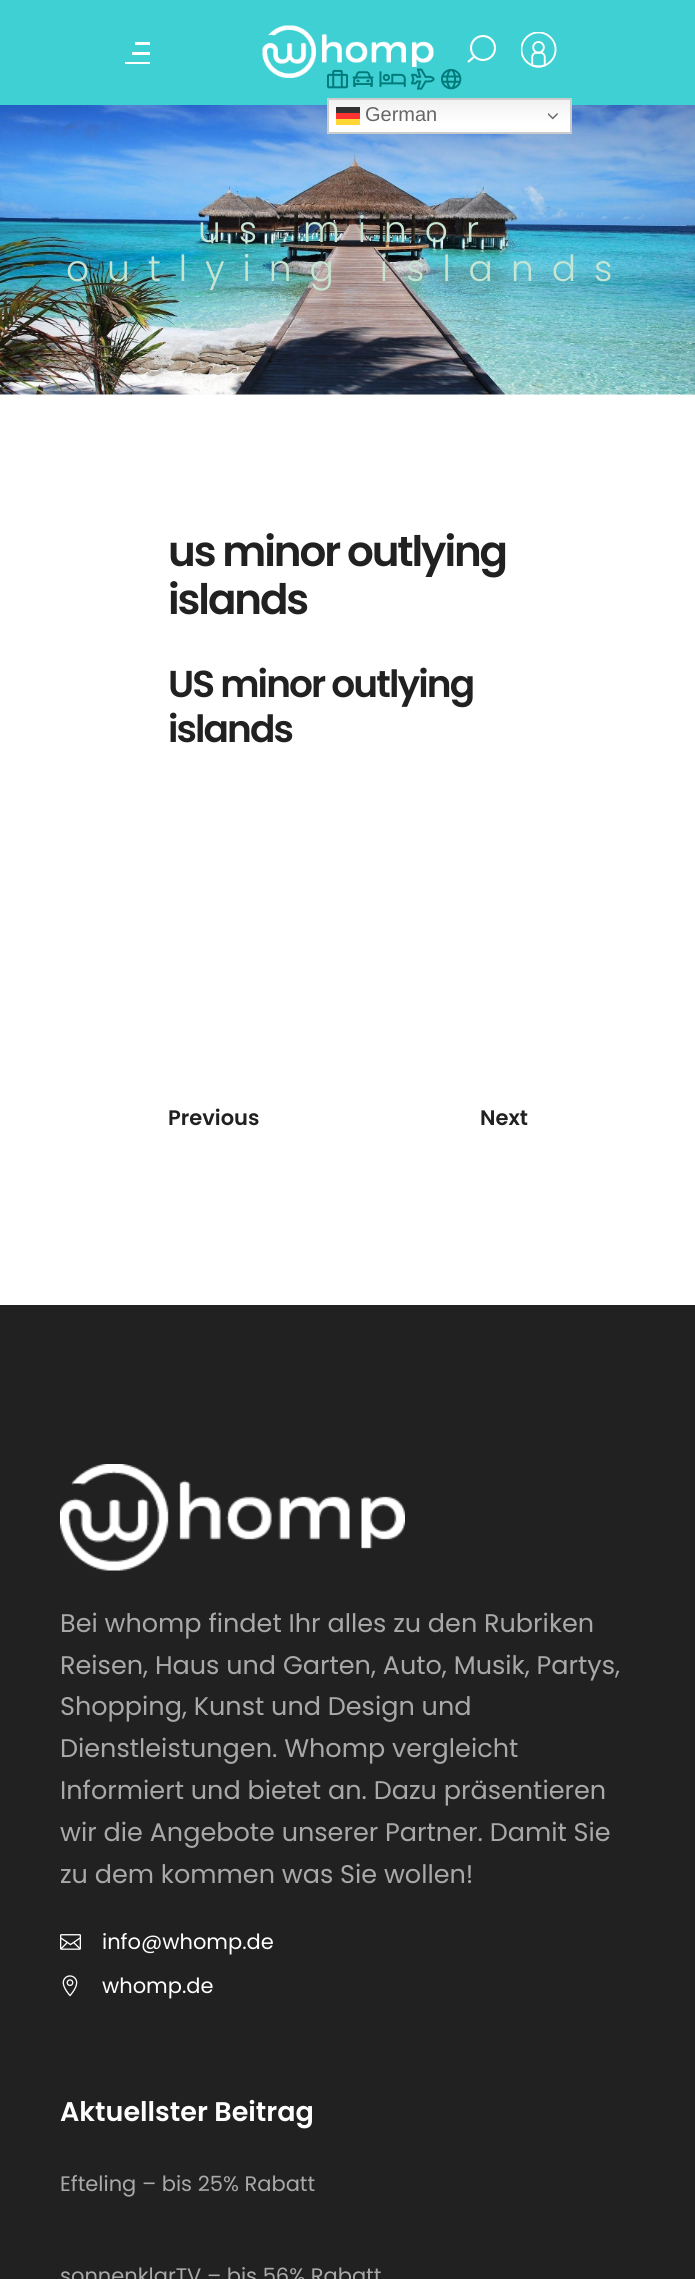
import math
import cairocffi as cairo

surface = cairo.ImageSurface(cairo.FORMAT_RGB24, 695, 2279)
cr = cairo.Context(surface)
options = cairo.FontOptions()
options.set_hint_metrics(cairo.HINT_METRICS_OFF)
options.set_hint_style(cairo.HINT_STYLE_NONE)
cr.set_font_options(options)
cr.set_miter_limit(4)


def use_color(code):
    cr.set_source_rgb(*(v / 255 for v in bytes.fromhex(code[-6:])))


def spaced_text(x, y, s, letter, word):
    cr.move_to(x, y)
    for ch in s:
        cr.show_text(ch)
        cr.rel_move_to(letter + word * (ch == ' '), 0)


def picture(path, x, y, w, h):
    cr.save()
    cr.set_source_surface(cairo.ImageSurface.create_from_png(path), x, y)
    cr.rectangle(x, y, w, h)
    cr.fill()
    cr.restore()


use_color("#ffffff")
cr.paint()
use_color("#3fd0d4")
cr.rectangle(0, 0, 695, 105)
cr.fill()
use_color("#ffffff")
cr.rectangle(135, 42, 15, 3)
cr.fill()
cr.rectangle(132, 52, 18, 3)
cr.fill()
cr.rectangle(125, 62, 25, 2)
cr.fill()
picture("img1.png", 262, 25, 172, 53)
cr.arc(483, 48, 12, 0, 2 * math.pi)
cr.set_line_width(2.1)
cr.stroke()
cr.new_path()
cr.move_to(475, 56)
cr.line_to(468, 62)
cr.stroke()
picture("img2.png", 521, 32, 36, 36)
picture("img3.png", 327, 69, 21, 20)
picture("img4.png", 352, 71, 22, 16)
picture("img5.png", 379, 71, 27, 16)
picture("img6.png", 411, 68, 24, 22)
picture("img7.png", 441, 69, 21, 21)
picture("img9.png", 0, 105, 695, 290)
gradient = cairo.LinearGradient(449, 97, 449, 134)
gradient.add_color_stop_rgba(0, 0.937, 0.937, 0.937, 1)
gradient.add_color_stop_rgba(0.7, 1, 1, 1, 1)
cr.set_source(gradient)
cr.rectangle(329, 100, 241, 32)
cr.fill()
cr.rectangle(328, 99, 243, 34)
use_color("#cccccc")
cr.set_line_width(2)
cr.stroke()
cr.set_source_rgba(0, 0, 0, 0.8)
cr.rectangle(336, 107, 24, 6)
cr.fill()
cr.select_font_face("Liberation Sans")
cr.set_font_size(20)
use_color("#666666")
cr.move_to(365, 121)
cr.show_text("German")
cr.set_source_rgba(1, 0, 0, 0.8)
cr.rectangle(336, 113, 24, 6)
cr.fill()
picture("img8.png", 548, 113, 10, 7)
use_color("#ffd633")
cr.rectangle(336, 119, 24, 6)
cr.fill()
cr.select_font_face("Poppins Light")
cr.set_font_size(36)
use_color("#c7e5d3")
spaced_text(198, 242, "us minor", 18, 0)
spaced_text(66, 281, "outlying islands", 18, 0)
cr.select_font_face("Poppins SemiBold")
cr.set_font_size(42)
use_color("#212121")
spaced_text(168, 566, "us minor outlying", -2.1, 0)
spaced_text(168, 614, "islands", -2.1, 0)
cr.set_font_size(37.5)
spaced_text(168, 697, "US minor outlying", -1.9, 0)
spaced_text(168, 742, "islands", -1.9, 0)
cr.set_font_size(21)
cr.move_to(168, 1125)
cr.show_text("Previous")
cr.move_to(480, 1125)
cr.show_text("Next")
cr.rectangle(0, 1305, 695, 974)
cr.fill()
picture("img10.png", 60, 1464, 345, 107)
cr.select_font_face("Poppins")
cr.set_font_size(25.5)
use_color("#a9a9a9")
cr.move_to(60, 1632)
cr.show_text("Bei whomp findet Ihr alles zu den Rubriken")
cr.move_to(60, 1674)
cr.show_text("Reisen, Haus und Garten, Auto, Musik, Partys,")
cr.move_to(60, 1715)
cr.show_text("Shopping, Kunst und Design und")
cr.move_to(60, 1757)
cr.show_text("Dienstleistungen. Whomp vergleicht")
cr.move_to(60, 1799)
cr.show_text("Informiert und bietet an. Dazu präsentieren")
cr.move_to(60, 1841)
cr.show_text("wir die Angebote unserer Partner. Damit Sie")
cr.move_to(60, 1883)
cr.show_text("zu dem kommen was Sie wollen!")
picture("img11.png", 60, 1934, 21, 16)
cr.set_font_size(21)
use_color("#ffffff")
cr.move_to(102, 1949)
cr.show_text("info@whomp.de")
picture("img12.png", 62, 1975, 16, 22)
cr.move_to(102, 1993)
cr.show_text("whomp.de")
cr.select_font_face("Poppins SemiBold")
cr.set_font_size(27)
cr.move_to(60, 2121)
cr.show_text("Aktuellster Beitrag")
cr.select_font_face("Poppins")
cr.set_font_size(21)
use_color("#a9a9a9")
cr.move_to(60, 2191)
cr.show_text("Efteling – bis 25% Rabatt")
cr.move_to(60, 2283)
cr.show_text("sonnenklarTV – bis 56% Rabatt")
surface.write_to_png("result.png")
